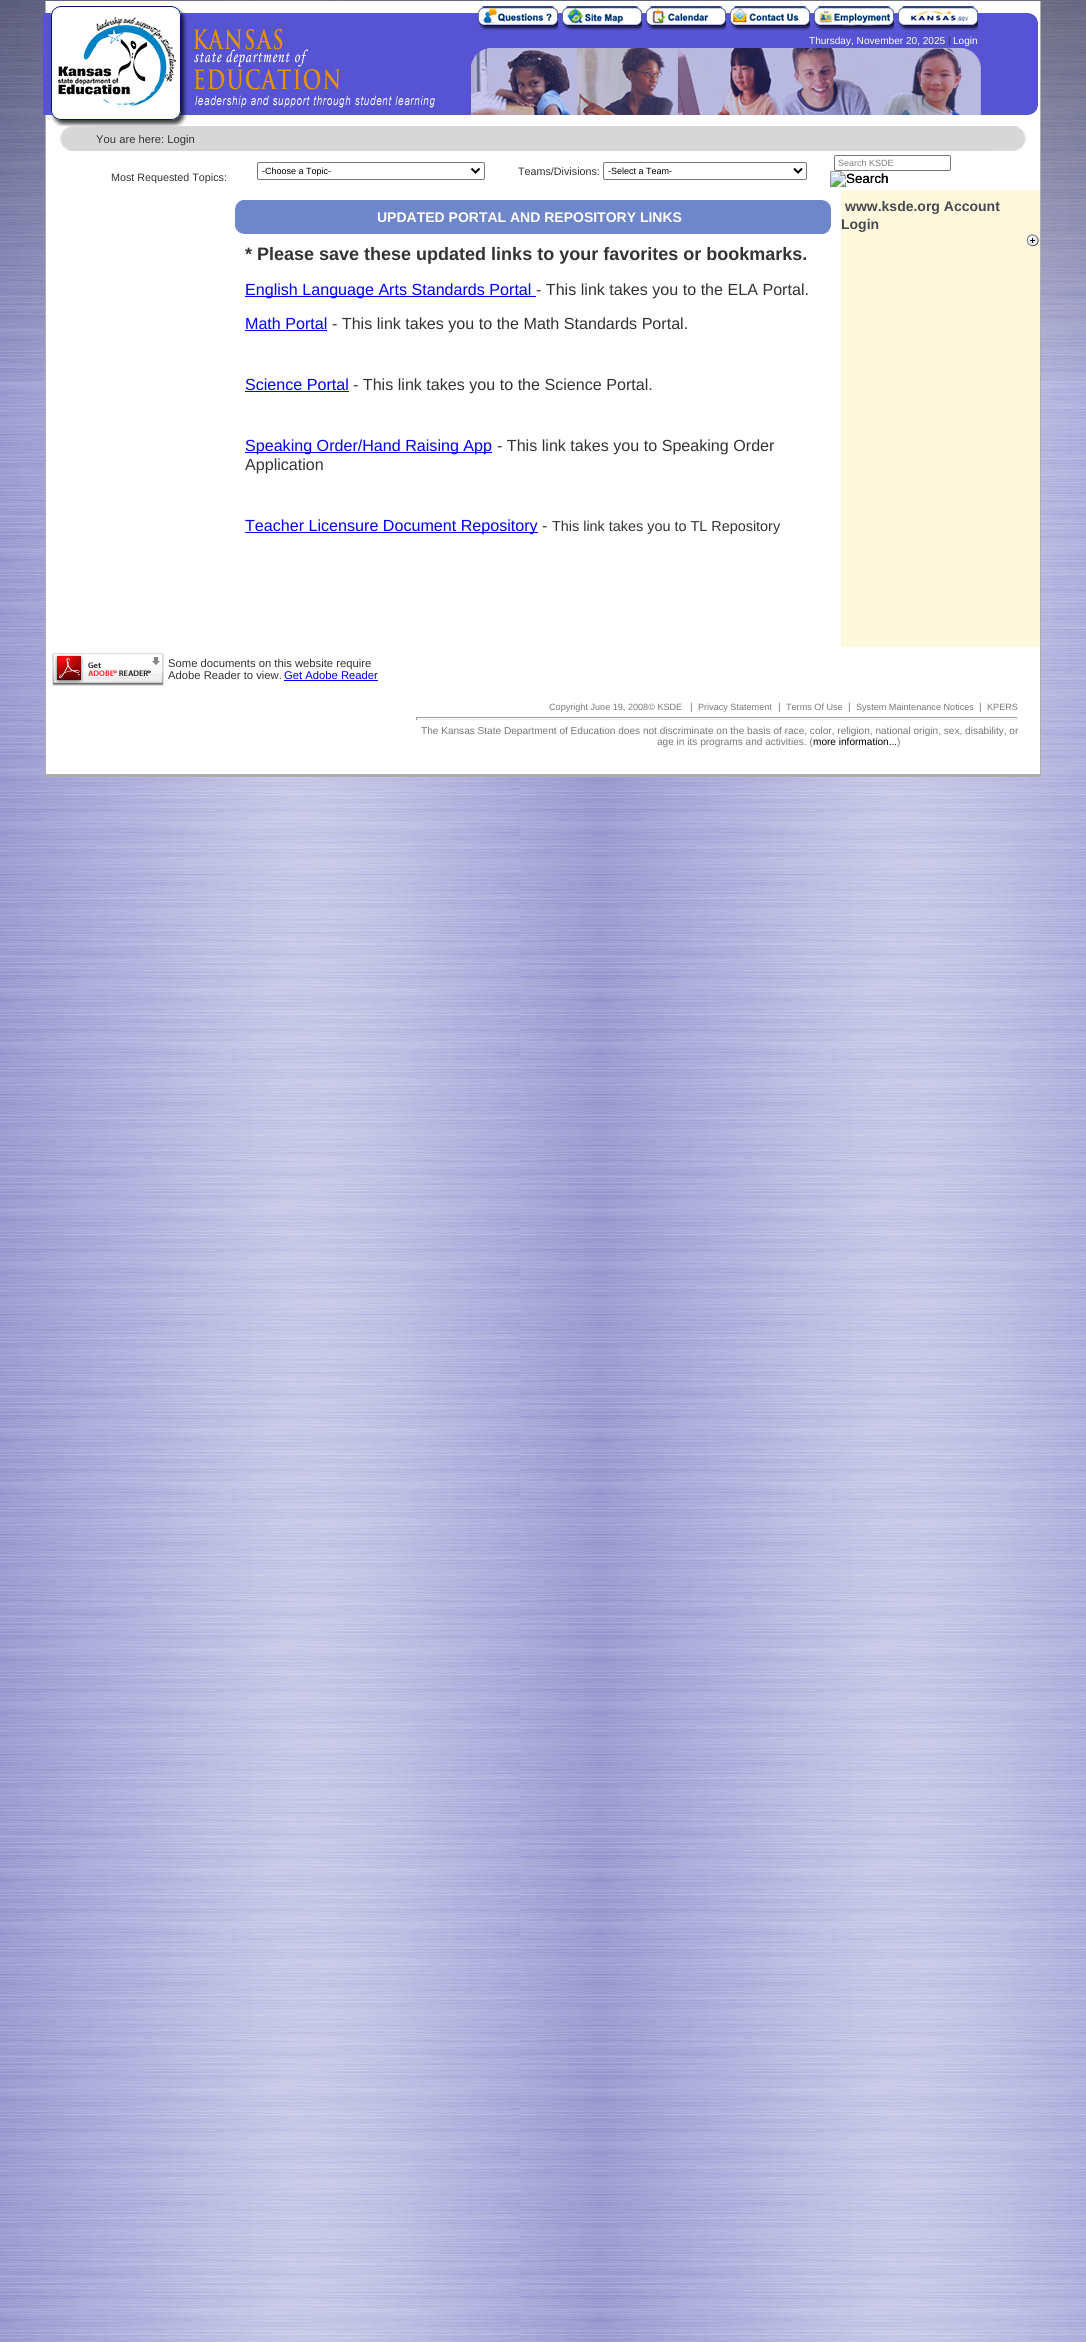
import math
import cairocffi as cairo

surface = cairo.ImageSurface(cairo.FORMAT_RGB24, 1086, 2342)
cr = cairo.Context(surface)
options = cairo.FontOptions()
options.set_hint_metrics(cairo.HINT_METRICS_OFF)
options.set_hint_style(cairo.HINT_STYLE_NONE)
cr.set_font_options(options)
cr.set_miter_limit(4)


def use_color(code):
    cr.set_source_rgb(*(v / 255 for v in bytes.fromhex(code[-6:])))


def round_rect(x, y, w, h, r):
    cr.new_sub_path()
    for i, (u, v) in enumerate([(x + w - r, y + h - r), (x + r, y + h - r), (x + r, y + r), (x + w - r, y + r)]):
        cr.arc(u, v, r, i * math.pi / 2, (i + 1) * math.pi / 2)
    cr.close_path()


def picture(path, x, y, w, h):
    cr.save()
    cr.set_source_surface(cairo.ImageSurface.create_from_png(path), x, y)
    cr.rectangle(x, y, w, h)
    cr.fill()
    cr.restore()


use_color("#ffffff")
cr.paint()
picture("img1.png", 0, 0, 1086, 2342)
picture("img2.png", 0, 0, 1086, 381)
use_color("#adadad")
cr.rectangle(1040, 1, 1, 776)
cr.fill()
cr.rectangle(45, 1, 1, 189)
cr.fill()
use_color("#ffffff")
cr.rectangle(46, 1, 994, 773)
cr.fill()
use_color("#5754d3")
cr.rectangle(435, 13, 8, 102)
cr.fill()
picture("img3.png", 43, 6, 392, 120)
picture("img4.png", 443, 13, 584, 102)
picture("img5.png", 478, 6, 80, 25)
picture("img6.png", 562, 6, 80, 25)
picture("img7.png", 646, 6, 80, 25)
picture("img8.png", 730, 6, 80, 25)
picture("img9.png", 814, 6, 80, 25)
picture("img10.png", 898, 6, 80, 25)
cr.select_font_face("Liberation Sans")
cr.set_font_size(10.08)
use_color("#ffffff")
cr.move_to(809, 44)
cr.show_text("Thursday, November 20, 2025")
use_color("#333333")
cr.move_to(948, 44)
cr.show_text("|")
use_color("#ffffff")
cr.move_to(953, 44)
cr.show_text("Login")
picture("img11.png", 1027, 13, 11, 102)
picture("img12.png", 60, 126, 36, 25)
use_color("#d7d7d7")
cr.rectangle(96, 126, 894, 25)
cr.fill()
cr.set_font_size(11.25)
use_color("#333333")
cr.move_to(96, 143)
cr.show_text("You are here: Login")
picture("img13.png", 990, 126, 36, 25)
round_rect(257.5, 162.5, 227, 17, 1.5)
use_color("#767676")
cr.set_line_width(1)
cr.stroke()
cr.new_path()
cr.move_to(471.5, 168.5)
cr.line_to(475.5, 172.5)
cr.line_to(479.5, 168.5)
use_color("#000000")
cr.set_line_width(2)
cr.stroke()
cr.set_font_size(9)
cr.move_to(262, 174)
cr.show_text("-Choose a Topic-")
cr.set_font_size(10.75)
use_color("#333333")
cr.move_to(518, 175)
cr.show_text("Teams/Divisions:")
round_rect(603.5, 162.5, 203, 17, 1.5)
use_color("#767676")
cr.set_line_width(1)
cr.stroke()
cr.new_path()
cr.move_to(794, 168.5)
cr.line_to(798, 172.5)
cr.line_to(802, 168.5)
use_color("#000000")
cr.set_line_width(2)
cr.stroke()
cr.set_font_size(9)
cr.move_to(608, 174)
cr.show_text("-Select a Team-")
round_rect(834.5, 155.5, 116, 15, 1.5)
use_color("#767676")
cr.set_line_width(1)
cr.stroke()
use_color("#808080")
cr.move_to(838, 166)
cr.show_text("Search KSDE")
picture("img14.png", 830, 171, 58, 16)
cr.set_font_size(13.5)
use_color("#000000")
cr.move_to(846, 183)
cr.show_text("Search")
cr.set_font_size(10.75)
use_color("#333333")
cr.move_to(111, 181)
cr.show_text("Most Requested Topics:")
use_color("#adadad")
cr.rectangle(45, 774, 996, 3)
cr.fill()
cr.rectangle(45, 190, 1, 587)
cr.fill()
picture("img15.png", 235, 200, 8, 8)
use_color("#6e86ca")
cr.rectangle(243, 200, 580, 8)
cr.fill()
picture("img16.png", 823, 200, 8, 8)
cr.rectangle(235, 208, 596, 26)
cr.fill()
cr.select_font_face("Liberation Sans", cairo.FONT_SLANT_NORMAL, cairo.FONT_WEIGHT_BOLD)
cr.set_font_size(14)
use_color("#ffffff")
cr.move_to(377, 222)
cr.show_text("UPDATED PORTAL AND REPOSITORY LINKS")
cr.rectangle(235, 226, 8, 8)
cr.fill()
picture("img17.png", 235, 226, 8, 8)
cr.rectangle(823, 226, 8, 8)
cr.fill()
picture("img18.png", 823, 226, 8, 8)
cr.set_font_size(18)
use_color("#333333")
cr.move_to(245, 260)
cr.show_text("* Please save these updated links to your favorites or bookmarks.")
use_color("#0000ff")
cr.rectangle(245, 296, 291, 1)
cr.fill()
cr.select_font_face("Liberation Sans")
cr.set_font_size(16.1)
cr.move_to(245, 295)
cr.show_text("English Language Arts Standards Portal")
use_color("#333333")
cr.move_to(536, 295)
cr.show_text("- This link takes you to the ELA Portal.")
use_color("#0000ff")
cr.move_to(245, 329)
cr.show_text("Math Portal")
cr.rectangle(245, 330, 82, 1)
cr.fill()
use_color("#333333")
cr.move_to(332, 329)
cr.show_text("- This link takes you to the Math Standards Portal.")
use_color("#0000ff")
cr.move_to(245, 390)
cr.show_text("Science Portal")
cr.rectangle(245, 391, 104, 1)
cr.fill()
use_color("#333333")
cr.move_to(353, 390)
cr.show_text("- This link takes you to the Science Portal.")
use_color("#0000ff")
cr.rectangle(245, 452, 247, 1)
cr.fill()
cr.move_to(245, 451)
cr.show_text("Speaking Order/Hand Raising App")
use_color("#333333")
cr.move_to(497, 451)
cr.show_text("- This link takes you to Speaking Order")
cr.move_to(245, 470)
cr.show_text("Application")
use_color("#0000ff")
cr.rectangle(245, 532, 293, 1)
cr.fill()
cr.move_to(245, 531)
cr.show_text("Teacher Licensure Document Repository")
use_color("#333333")
cr.move_to(542, 531)
cr.show_text("-")
cr.set_font_size(14.4)
cr.move_to(552, 531)
cr.show_text("This link takes you to TL Repository")
use_color("#fff8dc")
cr.rectangle(841, 190, 199, 457)
cr.fill()
cr.select_font_face("Liberation Sans", cairo.FONT_SLANT_NORMAL, cairo.FONT_WEIGHT_BOLD)
cr.set_font_size(14)
use_color("#43494d")
cr.move_to(845, 211)
cr.show_text("www.ksde.org Account")
cr.move_to(841, 229)
cr.show_text("Login")
picture("img19.png", 1026, 234, 13, 13)
picture("img20.png", 52, 653, 112, 33)
cr.select_font_face("Liberation Sans")
cr.set_font_size(11.25)
use_color("#333333")
cr.move_to(168, 667)
cr.show_text("Some documents on this website require")
cr.move_to(168, 679)
cr.show_text("Adobe Reader to view.")
use_color("#0000ff")
cr.move_to(284, 679)
cr.show_text("Get Adobe Reader")
cr.rectangle(284, 680, 94, 1)
cr.fill()
cr.set_font_size(9.1)
use_color("#777777")
cr.move_to(549, 710)
cr.show_text("Copyright June 19, 2008© KSDE")
cr.set_font_size(10.08)
cr.move_to(690, 710)
cr.show_text("|")
cr.set_font_size(9.1)
cr.move_to(698, 710)
cr.show_text("Privacy Statement")
cr.set_font_size(10.08)
cr.move_to(778, 710)
cr.show_text("|")
cr.set_font_size(9.1)
cr.move_to(786, 710)
cr.show_text("Terms Of Use")
cr.set_font_size(10.08)
cr.move_to(848, 710)
cr.show_text("|")
cr.set_font_size(9.1)
cr.move_to(856, 710)
cr.show_text("System Maintenance Notices")
cr.set_font_size(10.08)
cr.move_to(979, 710)
cr.show_text("|")
cr.set_font_size(9.1)
cr.move_to(987, 710)
cr.show_text("KPERS")
use_color("#9f9f9f")
cr.rectangle(416, 717, 602, 1)
cr.fill()
use_color("#eeeeee")
cr.rectangle(1017, 717, 1, 3)
cr.fill()
cr.rectangle(416, 719, 602, 1)
cr.fill()
use_color("#9f9f9f")
cr.rectangle(416, 717, 1, 3)
cr.fill()
cr.set_font_size(10.08)
use_color("#777777")
cr.move_to(421, 734)
cr.show_text("The Kansas State Department of Education does not discriminate on the basis of race, color, religion, national origin, sex, disability, or")
cr.move_to(657, 745)
cr.show_text("age in its programs and activities. (")
use_color("#000000")
cr.move_to(813, 745)
cr.show_text("more information...")
use_color("#777777")
cr.move_to(897, 745)
cr.show_text(")")
surface.write_to_png("result.png")
